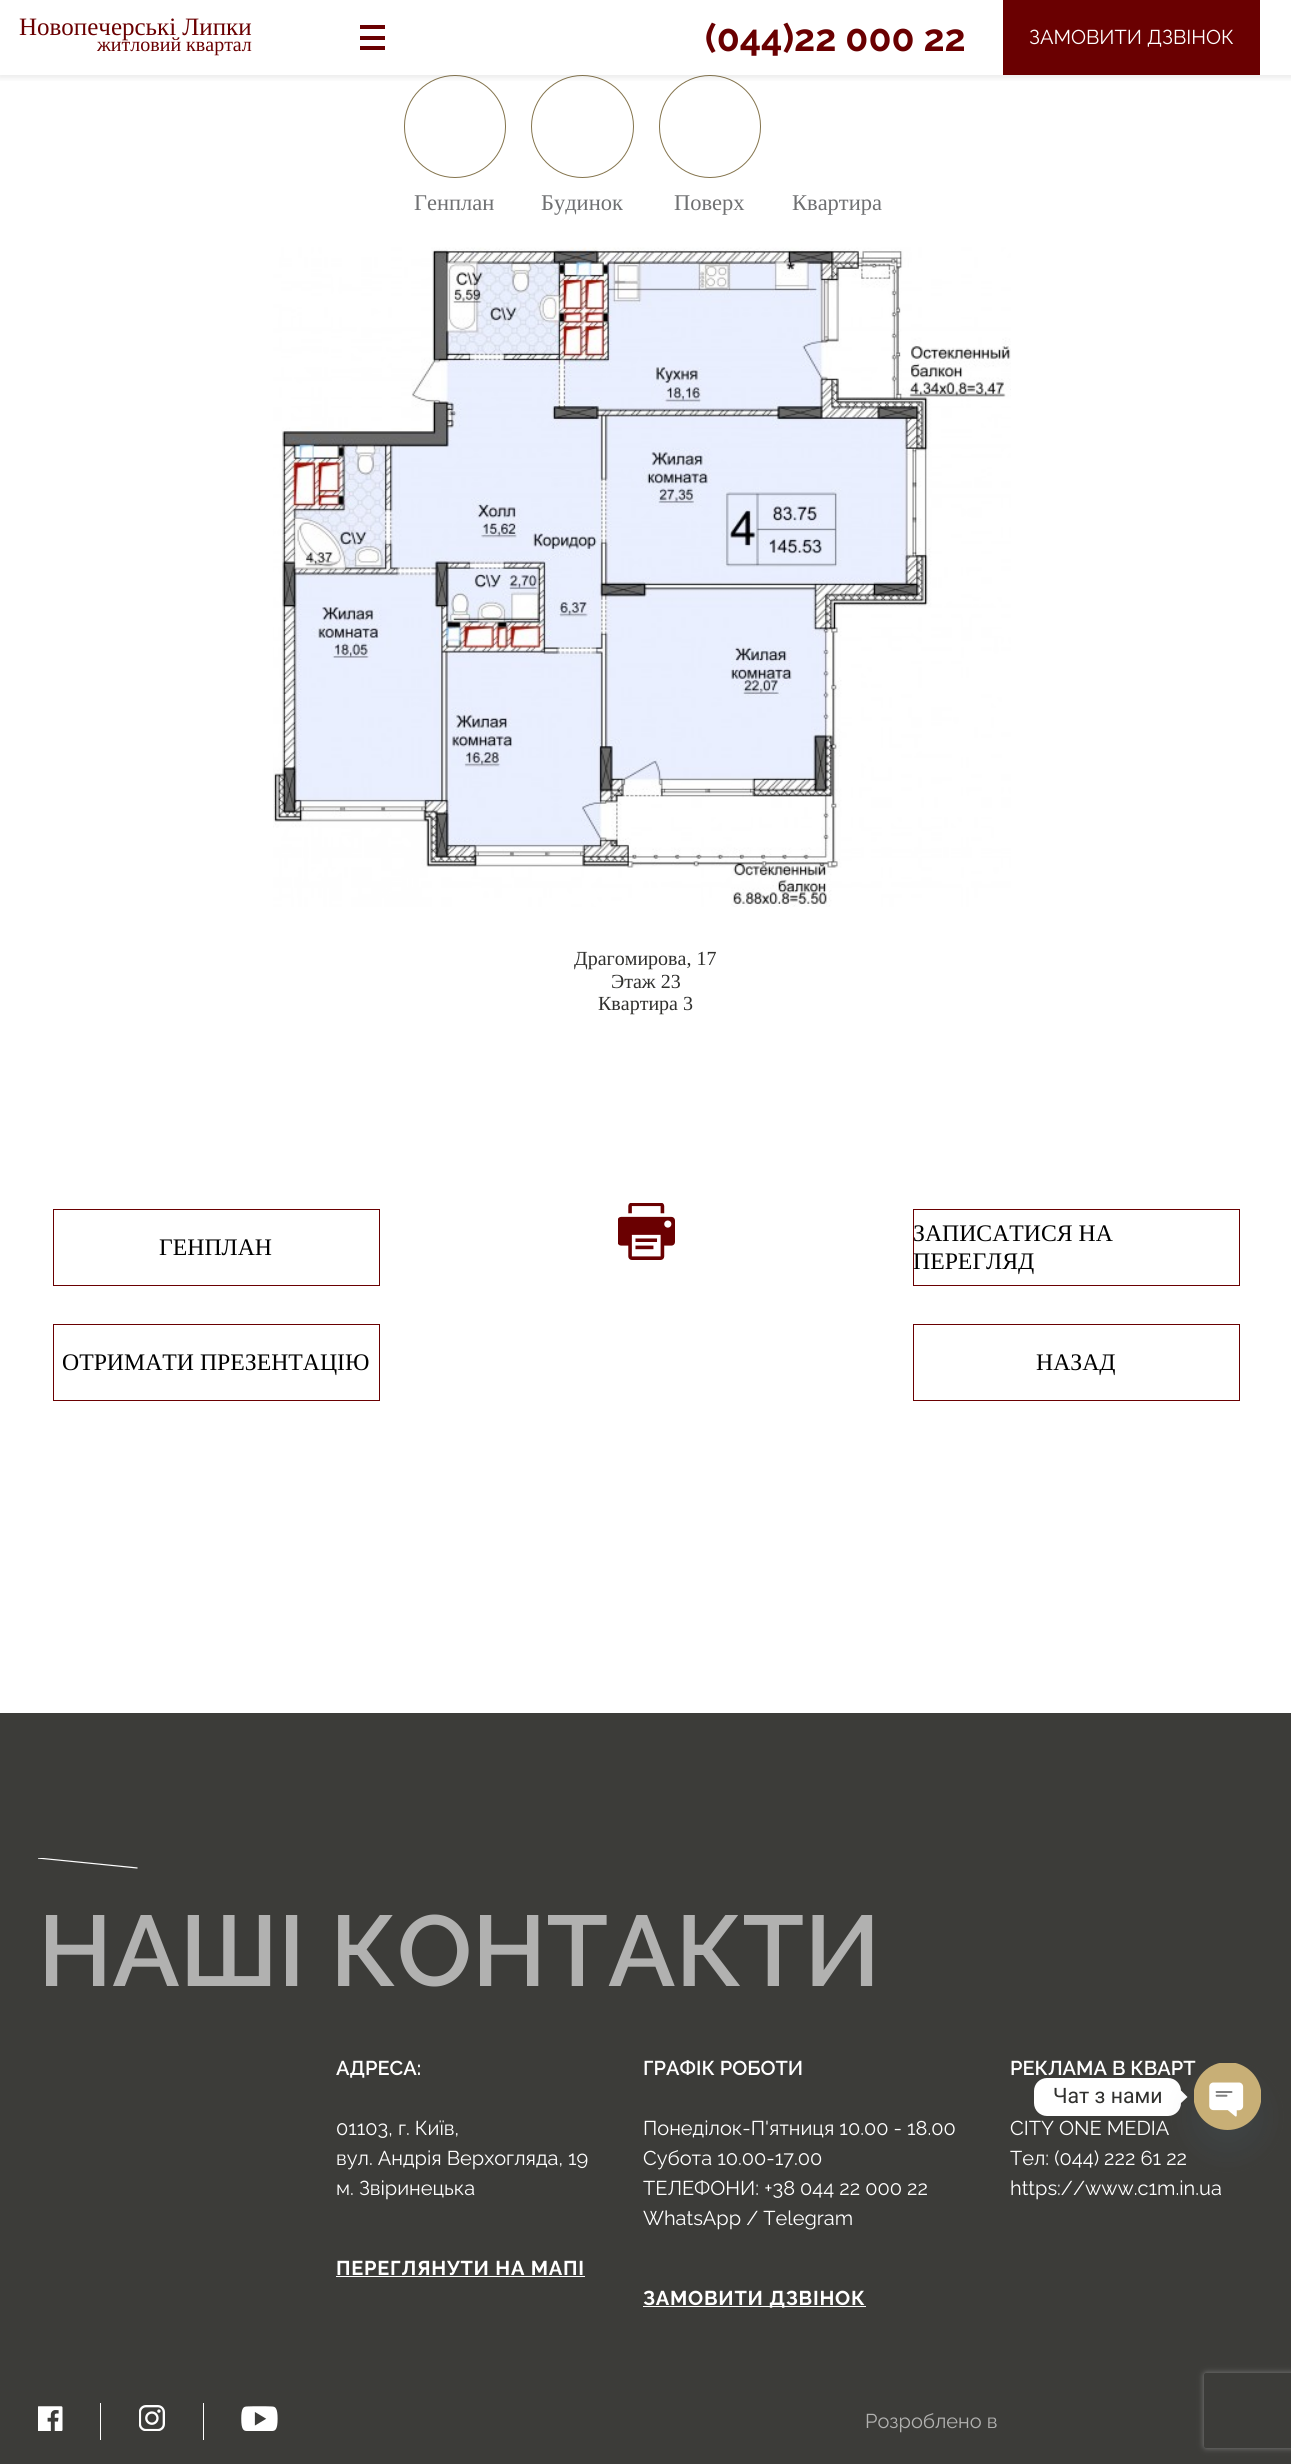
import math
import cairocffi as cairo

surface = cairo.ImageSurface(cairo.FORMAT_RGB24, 1291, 2464)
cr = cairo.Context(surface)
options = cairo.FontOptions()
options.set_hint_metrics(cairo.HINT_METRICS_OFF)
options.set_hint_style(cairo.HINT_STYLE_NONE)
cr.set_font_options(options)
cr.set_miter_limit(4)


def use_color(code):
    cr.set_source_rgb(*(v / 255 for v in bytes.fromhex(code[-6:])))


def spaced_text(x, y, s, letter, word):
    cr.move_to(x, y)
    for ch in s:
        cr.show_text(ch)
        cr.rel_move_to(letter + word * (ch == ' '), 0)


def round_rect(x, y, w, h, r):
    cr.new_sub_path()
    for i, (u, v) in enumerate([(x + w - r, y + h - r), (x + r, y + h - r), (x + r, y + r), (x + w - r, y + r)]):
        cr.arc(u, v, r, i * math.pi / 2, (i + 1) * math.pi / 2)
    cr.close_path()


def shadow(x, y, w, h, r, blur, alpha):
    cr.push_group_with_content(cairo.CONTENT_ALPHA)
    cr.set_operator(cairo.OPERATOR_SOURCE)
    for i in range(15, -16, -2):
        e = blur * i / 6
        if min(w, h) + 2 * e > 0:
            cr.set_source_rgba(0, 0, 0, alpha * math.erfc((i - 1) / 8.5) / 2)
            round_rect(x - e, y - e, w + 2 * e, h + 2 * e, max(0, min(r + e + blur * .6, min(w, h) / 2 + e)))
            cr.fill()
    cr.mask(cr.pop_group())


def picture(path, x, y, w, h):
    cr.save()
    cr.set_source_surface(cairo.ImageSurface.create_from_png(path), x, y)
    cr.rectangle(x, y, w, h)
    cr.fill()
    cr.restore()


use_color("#ffffff")
cr.paint()
round_rect(404.5, 75.5, 101, 102, 50.5)
use_color("#85754e")
cr.set_line_width(1)
cr.stroke()
cr.arc(582.5, 126.5, 51, 0, 2 * math.pi)
cr.stroke()
round_rect(659.5, 75.5, 101, 102, 50.5)
cr.stroke()
cr.save()
cr.rectangle(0, 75, 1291, 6)
cr.clip()
use_color("#333333")
shadow(-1, 0, 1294, 78, 0, 3, 0.1)
cr.restore()
cr.select_font_face("Liberation Serif")
cr.set_font_size(25)
use_color("#6a0001")
cr.move_to(19, 35)
cr.show_text("Новопечерські Липки")
cr.set_font_size(20)
cr.move_to(97, 51)
cr.show_text("житловий квартал")
cr.rectangle(360, 25, 25, 4)
cr.fill()
cr.rectangle(360, 36, 25, 4)
cr.fill()
cr.rectangle(360, 46, 25, 4)
cr.fill()
cr.select_font_face("Raleway", cairo.FONT_SLANT_NORMAL, cairo.FONT_WEIGHT_BOLD)
cr.set_font_size(37.5)
cr.move_to(705, 51)
cr.show_text("(044)22 000 22")
cr.rectangle(1003, 0, 257, 75)
cr.fill()
cr.select_font_face("Raleway")
cr.set_font_size(20)
use_color("#ffffff")
cr.move_to(1029, 44)
cr.show_text("ЗАМОВИТИ ДЗВІНОК")
cr.select_font_face("Liberation Serif")
cr.set_font_size(22.5)
use_color("#6f7072")
cr.move_to(414, 210)
cr.show_text("Генплан")
cr.move_to(541, 210)
cr.show_text("Будинок")
cr.move_to(674, 210)
cr.show_text("Поверх")
cr.move_to(792, 210)
cr.show_text("Квартира")
picture("img1.png", 273, 247, 738, 660)
cr.set_font_size(20)
use_color("#30302e")
cr.move_to(574, 965)
cr.show_text("Драгомирова, 17")
cr.move_to(611, 988)
cr.show_text("Этаж 23")
cr.move_to(598, 1010)
cr.show_text("Квартира 3")
cr.rectangle(53.5, 1209.5, 326, 76)
use_color("#6a0001")
cr.stroke()
cr.set_font_size(23.75)
use_color("#000000")
cr.move_to(159, 1255)
cr.show_text("ГЕНПЛАН")
picture("img2.png", 618, 1203, 57, 57)
cr.rectangle(913.5, 1209.5, 326, 76)
use_color("#6a0001")
cr.stroke()
use_color("#000000")
cr.move_to(913, 1241)
cr.show_text("ЗАПИСАТИСЯ НА")
cr.move_to(913, 1269)
cr.show_text("ПЕРЕГЛЯД")
cr.rectangle(53.5, 1324.5, 326, 76)
use_color("#6a0001")
cr.stroke()
use_color("#000000")
cr.move_to(62, 1370)
cr.show_text("ОТРИМАТИ ПРЕЗЕНТАЦІЮ")
cr.rectangle(913.5, 1324.5, 326, 76)
use_color("#6a0001")
cr.stroke()
use_color("#000000")
cr.move_to(1036, 1370)
cr.show_text("НАЗАД")
use_color("#3c3c39")
cr.rectangle(0, 1713, 1291, 751)
cr.fill()
cr.save()
cr.rectangle(38, 1858, 100, 11)
cr.clip()
cr.new_path()
cr.move_to(37.5, 1858)
cr.line_to(137.5, 1868)
use_color("#ffffff")
cr.set_line_width(1.2)
cr.stroke()
cr.restore()
cr.select_font_face("Raleway SemiBold")
cr.set_font_size(100)
use_color("#b1b1b0")
cr.move_to(38, 1986)
cr.show_text("НАШІ КОНТАКТИ")
cr.set_font_size(20)
use_color("#ffffff")
cr.move_to(336, 2075)
cr.show_text("АДРЕСА:")
cr.select_font_face("Raleway")
cr.move_to(336, 2135)
cr.show_text("01103, г. Київ,")
cr.move_to(336, 2165)
cr.show_text("вул. Андрія Верхогляда, 19")
cr.move_to(336, 2195)
cr.show_text("м. Звіринецька")
cr.select_font_face("Raleway", cairo.FONT_SLANT_NORMAL, cairo.FONT_WEIGHT_BOLD)
spaced_text(336, 2275, "ПЕРЕГЛЯНУТИ НА МАПІ", 0.75, 0)
cr.rectangle(336, 2276, 249, 1)
cr.fill()
cr.select_font_face("Raleway SemiBold")
cr.move_to(643, 2075)
cr.show_text("ГРАФІК РОБОТИ")
cr.select_font_face("Raleway")
cr.move_to(643, 2135)
cr.show_text("Понеділок-П'ятниця 10.00 - 18.00")
cr.move_to(643, 2165)
cr.show_text("Субота 10.00-17.00")
cr.move_to(643, 2195)
cr.show_text("ТЕЛЕФОНИ: +38 044 22 000 22")
cr.move_to(643, 2225)
cr.show_text("WhatsApp / Telegram")
cr.rectangle(643, 2306, 223, 1)
cr.fill()
cr.select_font_face("Raleway", cairo.FONT_SLANT_NORMAL, cairo.FONT_WEIGHT_BOLD)
spaced_text(643, 2305, "ЗАМОВИТИ ДЗВІНОК", 0.75, 0)
cr.select_font_face("Raleway SemiBold")
cr.move_to(1010, 2075)
cr.show_text("РЕКЛАМА В КВАРТ")
cr.select_font_face("Raleway")
cr.move_to(1010, 2135)
cr.show_text("CITY ONE MEDIA")
cr.move_to(1010, 2165)
cr.show_text("Тел: (044) 222 61 22")
cr.move_to(1010, 2195)
cr.show_text("https://www.c1m.in.ua")
picture("img3.png", 38, 2406, 25, 25)
cr.rectangle(100, 2403, 1, 37)
cr.fill()
picture("img4.png", 139, 2405, 26, 26)
cr.rectangle(203, 2403, 1, 37)
cr.fill()
picture("img5.png", 241, 2406, 37, 25)
use_color("#b1b1b0")
cr.move_to(865, 2428)
cr.show_text("Розроблено в")
use_color("#ffffff")
round_rect(1034, 2078, 147, 38, 13)
cr.fill()
cr.select_font_face("Roboto")
cr.set_font_size(21.25)
use_color("#30302e")
cr.move_to(1053, 2103)
cr.show_text("Чат з нами")
use_color("#ffffff")
cr.new_path()
cr.move_to(1181, 2103)
cr.line_to(1181, 2090.5)
cr.line_to(1187.5, 2097)
cr.close_path()
cr.fill()
use_color("#49687e")
shadow(1194, 2083, 67, 67, 33.5, 15, 0.16)
picture("img6.png", 1194, 2063, 67, 67)
cr.save()
cr.set_fill_rule(cairo.FILL_RULE_EVEN_ODD)
cr.new_path()
cr.move_to(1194, 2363)
cr.line_to(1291, 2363)
cr.line_to(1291, 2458)
cr.line_to(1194, 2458)
cr.close_path()
cr.move_to(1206.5, 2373)
cr.line_to(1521.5, 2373)
cr.curve_to(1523, 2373, 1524, 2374, 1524, 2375.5)
cr.line_to(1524, 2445.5)
cr.curve_to(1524, 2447, 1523, 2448, 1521.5, 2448)
cr.line_to(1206.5, 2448)
cr.curve_to(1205, 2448, 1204, 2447, 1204, 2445.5)
cr.line_to(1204, 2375.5)
cr.curve_to(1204, 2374, 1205, 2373, 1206.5, 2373)
cr.close_path()
cr.clip()
use_color("#808080")
shadow(1204, 2373, 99, 75, 2.5, 3, 1)
cr.restore()
surface.write_to_png("result.png")
